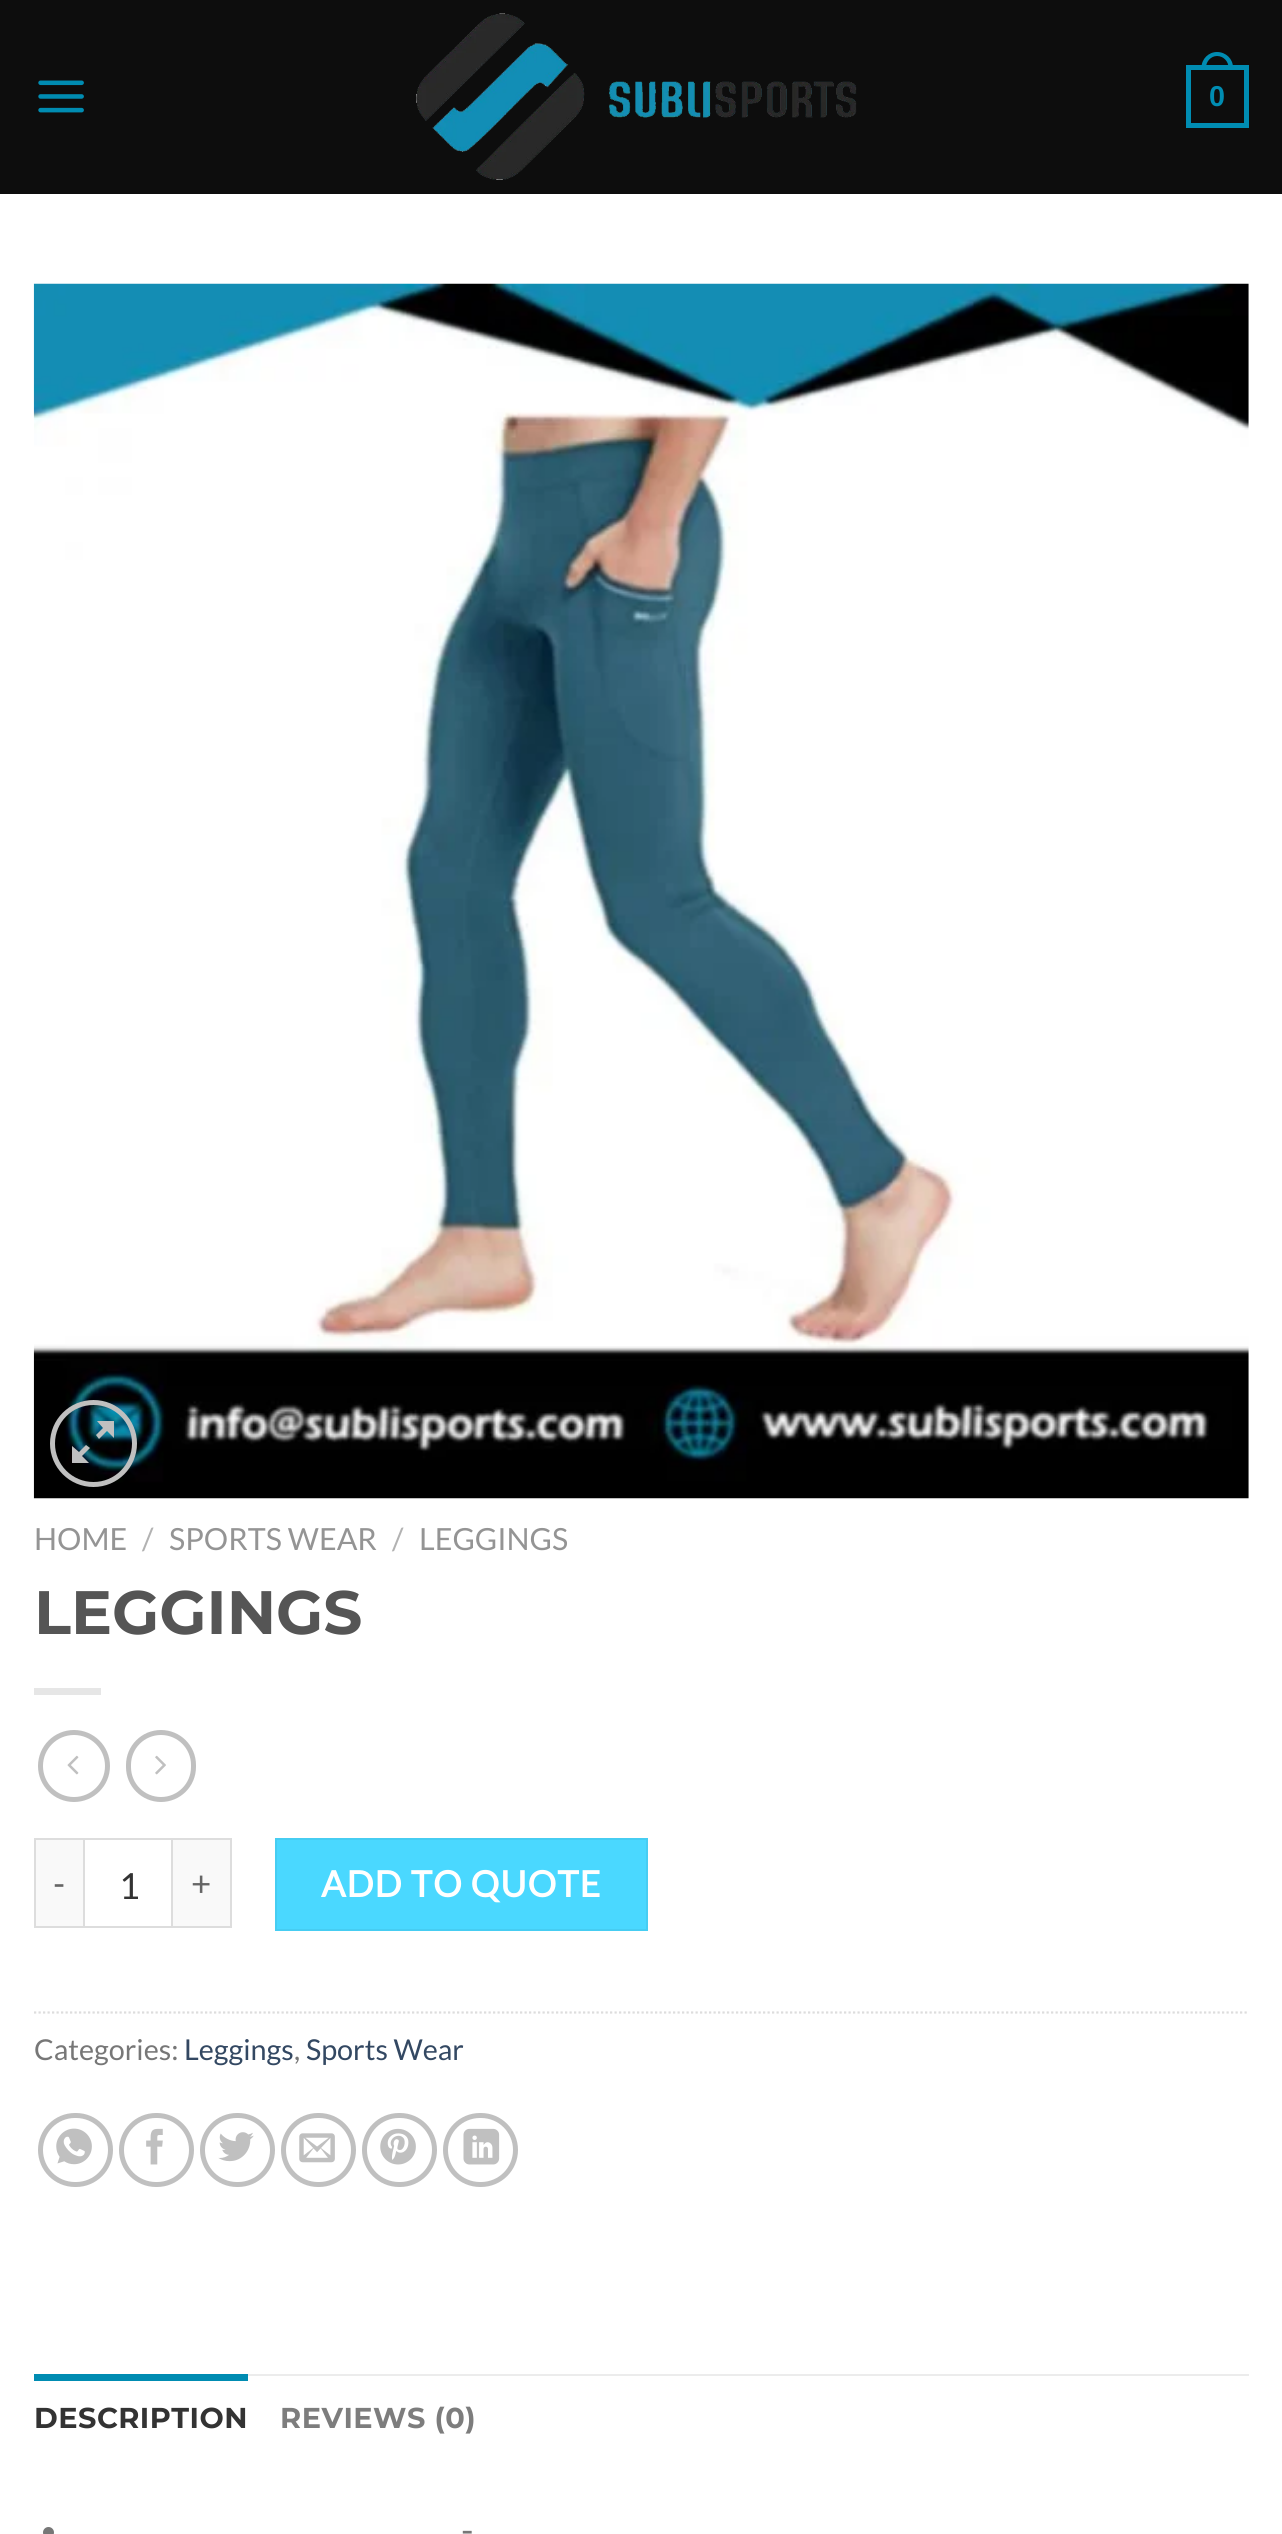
import math
import cairocffi as cairo

surface = cairo.ImageSurface(cairo.FORMAT_RGB24, 1282, 2534)
cr = cairo.Context(surface)
options = cairo.FontOptions()
options.set_hint_metrics(cairo.HINT_METRICS_OFF)
options.set_hint_style(cairo.HINT_STYLE_NONE)
cr.set_font_options(options)
cr.set_miter_limit(4)


def use_color(code):
    cr.set_source_rgb(*(v / 255 for v in bytes.fromhex(code[-6:])))


def spaced_text(x, y, s, letter, word):
    cr.move_to(x, y)
    for ch in s:
        cr.show_text(ch)
        cr.rel_move_to(letter + word * (ch == ' '), 0)


def round_rect(x, y, w, h, r):
    cr.new_sub_path()
    for i, (u, v) in enumerate([(x + w - r, y + h - r), (x + r, y + h - r), (x + r, y + r), (x + w - r, y + r)]):
        cr.arc(u, v, r, i * math.pi / 2, (i + 1) * math.pi / 2)
    cr.close_path()


def picture(path, x, y, w, h):
    cr.save()
    cr.set_source_surface(cairo.ImageSurface.create_from_png(path), x, y)
    cr.rectangle(x, y, w, h)
    cr.fill()
    cr.restore()


use_color("#ffffff")
cr.paint()
use_color("#0d0d0d")
cr.rectangle(0, 0, 1282, 194)
cr.fill()
picture("img1.png", 38, 80, 46, 33)
picture("img2.png", 416, 13, 441, 167)
cr.rectangle(1188.5, 67.5, 58, 58)
use_color("#008cb2")
cr.set_line_width(5)
cr.stroke()
cr.set_fill_rule(cairo.FILL_RULE_EVEN_ODD)
cr.new_path()
cr.move_to(1217, 52)
cr.curve_to(1226, 52, 1233, 59, 1233, 67.5)
cr.line_to(1233, 70)
cr.line_to(1201.5, 70)
cr.line_to(1201.5, 67.5)
cr.curve_to(1201.5, 59, 1208.5, 52, 1217, 52)
cr.close_path()
cr.move_to(1217, 56)
cr.curve_to(1223.5, 56, 1228.5, 61.5, 1228.5, 67.5)
cr.line_to(1228.5, 70)
cr.line_to(1206, 70)
cr.line_to(1206, 67.5)
cr.curve_to(1206, 61.5, 1211, 56, 1217, 56)
cr.close_path()
cr.fill()
cr.select_font_face("Liberation Sans", cairo.FONT_SLANT_NORMAL, cairo.FONT_WEIGHT_BOLD)
cr.set_font_size(28.75)
cr.move_to(1209, 106)
cr.show_text("0")
picture("img3.png", 33, 283, 1216, 1216)
cr.arc(93.5, 1443.5, 41, 0, 2 * math.pi)
use_color("#c0c0c0")
cr.stroke()
cr.set_fill_rule(cairo.FILL_RULE_WINDING)
cr.new_path()
cr.move_to(114, 1421)
cr.line_to(114, 1438)
cr.line_to(107, 1431)
cr.line_to(99, 1439)
cr.line_to(96, 1435)
cr.line_to(103, 1428)
cr.line_to(97, 1421)
cr.close_path()
cr.move_to(90, 1448)
cr.line_to(82, 1456)
cr.line_to(89, 1463)
cr.line_to(72, 1463)
cr.line_to(72, 1446)
cr.line_to(79, 1452)
cr.line_to(86, 1445)
cr.close_path()
cr.fill()
cr.select_font_face("Lato")
cr.set_font_size(30.5)
use_color("#949494")
cr.move_to(34, 1550)
cr.show_text("HOME")
use_color("#b2b2b2")
cr.move_to(142, 1550)
cr.show_text("/")
use_color("#949494")
cr.move_to(169, 1550)
cr.show_text("SPORTS WEAR")
use_color("#b2b2b2")
cr.move_to(392, 1550)
cr.show_text("/")
use_color("#949494")
cr.move_to(419, 1550)
cr.show_text("LEGGINGS")
cr.select_font_face("Montserrat", cairo.FONT_SLANT_NORMAL, cairo.FONT_WEIGHT_BOLD)
cr.set_font_size(61.25)
use_color("#555555")
cr.move_to(34, 1634)
cr.show_text("LEGGINGS")
use_color("#e6e6e6")
cr.rectangle(34, 1688, 67, 7)
cr.fill()
cr.arc(74, 1766, 33.5, 0, 2 * math.pi)
use_color("#c0c0c0")
cr.stroke()
picture("img4.png", 67, 1755, 12, 20)
round_rect(128.5, 1732.5, 65, 67, 32.5)
cr.stroke()
picture("img5.png", 155, 1755, 11, 20)
use_color("#f9f9f9")
cr.rectangle(36, 1840, 47, 86)
cr.fill()
use_color("#dddddd")
cr.rectangle(34, 1838, 49, 2)
cr.fill()
cr.rectangle(34, 1926, 49, 2)
cr.fill()
cr.rectangle(34, 1838, 2, 90)
cr.fill()
cr.select_font_face("Lato")
cr.set_font_size(35)
use_color("#666666")
spaced_text(53, 1896, "-", 1, 0)
cr.rectangle(84, 1839, 88, 88)
use_color("#dddddd")
cr.set_line_width(2)
cr.stroke()
cr.set_font_size(36)
use_color("#333333")
cr.move_to(119, 1899)
cr.show_text("1")
use_color("#f9f9f9")
cr.rectangle(173, 1840, 57, 86)
cr.fill()
use_color("#dddddd")
cr.rectangle(173, 1838, 59, 2)
cr.fill()
cr.rectangle(230, 1838, 2, 90)
cr.fill()
cr.rectangle(173, 1926, 59, 2)
cr.fill()
cr.set_font_size(35)
use_color("#666666")
spaced_text(191, 1896, "+", 1, 0)
use_color("#4ad8ff")
cr.rectangle(276, 1839, 371, 91)
cr.fill_preserve()
use_color("#46cdf2")
cr.stroke()
cr.select_font_face("Lato", cairo.FONT_SLANT_NORMAL, cairo.FONT_WEIGHT_BOLD)
cr.set_font_size(36)
use_color("#ffffff")
spaced_text(321, 1897, "ADD TO QUOTE", 1, 0)
cr.new_path()
cr.move_to(34, 2012.5)
cr.line_to(1249, 2012.5)
use_color("#dddddd")
cr.set_line_width(2.2)
cr.set_dash([2.25, 2.25])
cr.stroke()
cr.select_font_face("Lato")
cr.set_font_size(28.75)
use_color("#777777")
cr.move_to(34, 2060)
cr.show_text("Categories:")
use_color("#334862")
cr.move_to(184, 2060)
cr.show_text("Leggings")
use_color("#777777")
cr.move_to(294, 2060)
cr.show_text(",")
use_color("#334862")
cr.move_to(306, 2060)
cr.show_text("Sports Wear")
round_rect(40.5, 2115.5, 70, 69, 34.5)
use_color("#c0c0c0")
cr.set_line_width(5)
cr.set_dash([])
cr.stroke()
picture("img6.png", 56, 2128, 36, 37)
round_rect(121.5, 2115.5, 70, 69, 34.5)
cr.stroke()
picture("img7.png", 146, 2128, 17, 37)
round_rect(202.5, 2115.5, 70, 69, 34.5)
cr.stroke()
picture("img8.png", 218, 2132, 36, 30)
round_rect(283.5, 2115.5, 70, 69, 34.5)
cr.stroke()
picture("img9.png", 299, 2133, 36, 30)
round_rect(364.5, 2115.5, 70, 69, 34.5)
cr.stroke()
picture("img10.png", 380, 2128, 36, 37)
round_rect(445.5, 2115.5, 70, 69, 34.5)
cr.stroke()
picture("img11.png", 463, 2128, 37, 37)
use_color("#ececec")
cr.rectangle(248, 2374, 1001, 2)
cr.fill()
use_color("#008cb2")
cr.rectangle(34, 2374, 214, 7)
cr.fill()
cr.select_font_face("Montserrat", cairo.FONT_SLANT_NORMAL, cairo.FONT_WEIGHT_BOLD)
use_color("#333333")
spaced_text(34, 2428, "DESCRIPTION", 0.5, 0)
use_color("#7d7d7d")
spaced_text(280, 2428, "REVIEWS (0)", 0.5, 0)
use_color("#777777")
cr.new_path()
cr.arc(48.5, 2532.5, 5.5, 0, 2 * math.pi)
cr.fill()
cr.select_font_face("Lato")
cr.set_font_size(36)
cr.move_to(461, 2543)
cr.show_text("-")
surface.write_to_png("result.png")
